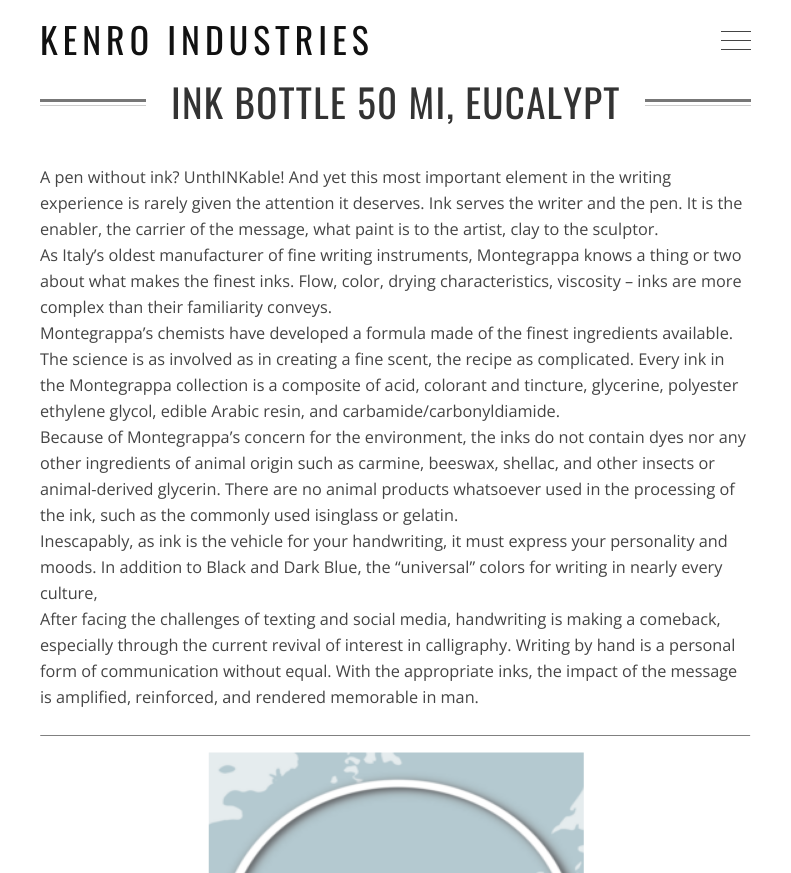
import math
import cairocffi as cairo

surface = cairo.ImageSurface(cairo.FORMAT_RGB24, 791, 873)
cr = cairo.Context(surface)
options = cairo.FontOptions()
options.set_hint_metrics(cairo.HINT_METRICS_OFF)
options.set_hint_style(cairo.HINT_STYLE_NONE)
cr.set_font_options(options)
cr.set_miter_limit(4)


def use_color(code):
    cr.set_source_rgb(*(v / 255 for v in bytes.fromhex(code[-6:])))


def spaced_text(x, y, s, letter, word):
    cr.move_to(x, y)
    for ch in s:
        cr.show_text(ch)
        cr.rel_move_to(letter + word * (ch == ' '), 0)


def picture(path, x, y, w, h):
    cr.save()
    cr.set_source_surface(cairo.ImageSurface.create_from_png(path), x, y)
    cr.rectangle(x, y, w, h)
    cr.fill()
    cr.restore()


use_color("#ffffff")
cr.paint()
cr.select_font_face("Oswald")
cr.set_font_size(35.75)
use_color("#111111")
spaced_text(40, 55, "KENRO INDUSTRIES", 5, 0)
use_color("#444444")
cr.rectangle(721, 31, 30, 1)
cr.fill()
cr.rectangle(721, 40, 30, 1)
cr.fill()
cr.rectangle(721, 49, 30, 1)
cr.fill()
use_color("#777777")
cr.rectangle(40, 99, 106, 3)
cr.fill()
use_color("#cccccc")
cr.rectangle(40, 105, 106, 1)
cr.fill()
cr.set_font_size(39)
use_color("#333333")
spaced_text(171, 119, "INK BOTTLE 50 MI, EUCALYPT", 1.25, 0)
use_color("#777777")
cr.rectangle(645, 99, 106, 3)
cr.fill()
use_color("#cccccc")
cr.rectangle(645, 105, 106, 1)
cr.fill()
cr.select_font_face("Open Sans")
cr.set_font_size(16.25)
use_color("#444444")
cr.move_to(40, 183)
cr.show_text("A pen without ink? UnthINKable! And yet this most important element in the writing")
cr.move_to(40, 209)
cr.show_text("experience is rarely given the attention it deserves. Ink serves the writer and the pen. It is the")
cr.move_to(40, 235)
cr.show_text("enabler, the carrier of the message, what paint is to the artist, clay to the sculptor.")
cr.move_to(40, 261)
cr.show_text("As Italy’s oldest manufacturer of fine writing instruments, Montegrappa knows a thing or two")
cr.move_to(40, 287)
cr.show_text("about what makes the finest inks. Flow, color, drying characteristics, viscosity – inks are more")
cr.move_to(40, 313)
cr.show_text("complex than their familiarity conveys.")
cr.move_to(40, 339)
cr.show_text("Montegrappa’s chemists have developed a formula made of the finest ingredients available.")
cr.move_to(40, 365)
cr.show_text("The science is as involved as in creating a fine scent, the recipe as complicated. Every ink in")
cr.move_to(40, 391)
cr.show_text("the Montegrappa collection is a composite of acid, colorant and tincture, glycerine, polyester")
cr.move_to(40, 417)
cr.show_text("ethylene glycol, edible Arabic resin, and carbamide/carbonyldiamide.")
cr.move_to(40, 443)
cr.show_text("Because of Montegrappa’s concern for the environment, the inks do not contain dyes nor any")
cr.move_to(40, 469)
cr.show_text("other ingredients of animal origin such as carmine, beeswax, shellac, and other insects or")
cr.move_to(40, 495)
cr.show_text("animal-derived glycerin. There are no animal products whatsoever used in the processing of")
cr.move_to(40, 521)
cr.show_text("the ink, such as the commonly used isinglass or gelatin.")
cr.move_to(40, 547)
cr.show_text("Inescapably, as ink is the vehicle for your handwriting, it must express your personality and")
cr.move_to(40, 573)
cr.show_text("moods. In addition to Black and Dark Blue, the “universal” colors for writing in nearly every")
cr.move_to(40, 599)
cr.show_text("culture,")
cr.move_to(40, 625)
cr.show_text("After facing the challenges of texting and social media, handwriting is making a comeback,")
cr.move_to(40, 651)
cr.show_text("especially through the current revival of interest in calligraphy. Writing by hand is a personal")
cr.move_to(40, 677)
cr.show_text("form of communication without equal. With the appropriate inks, the impact of the message")
cr.move_to(40, 703)
cr.show_text("is amplified, reinforced, and rendered memorable in man.")
use_color("#808080")
cr.rectangle(40, 735, 711, 1)
cr.fill()
use_color("#eeeeee")
cr.rectangle(750, 735, 1, 1)
cr.fill()
use_color("#9f9f9f")
cr.rectangle(40, 735, 1, 1)
cr.fill()
picture("img1.png", 208, 752, 376, 121)
surface.write_to_png("result.png")
